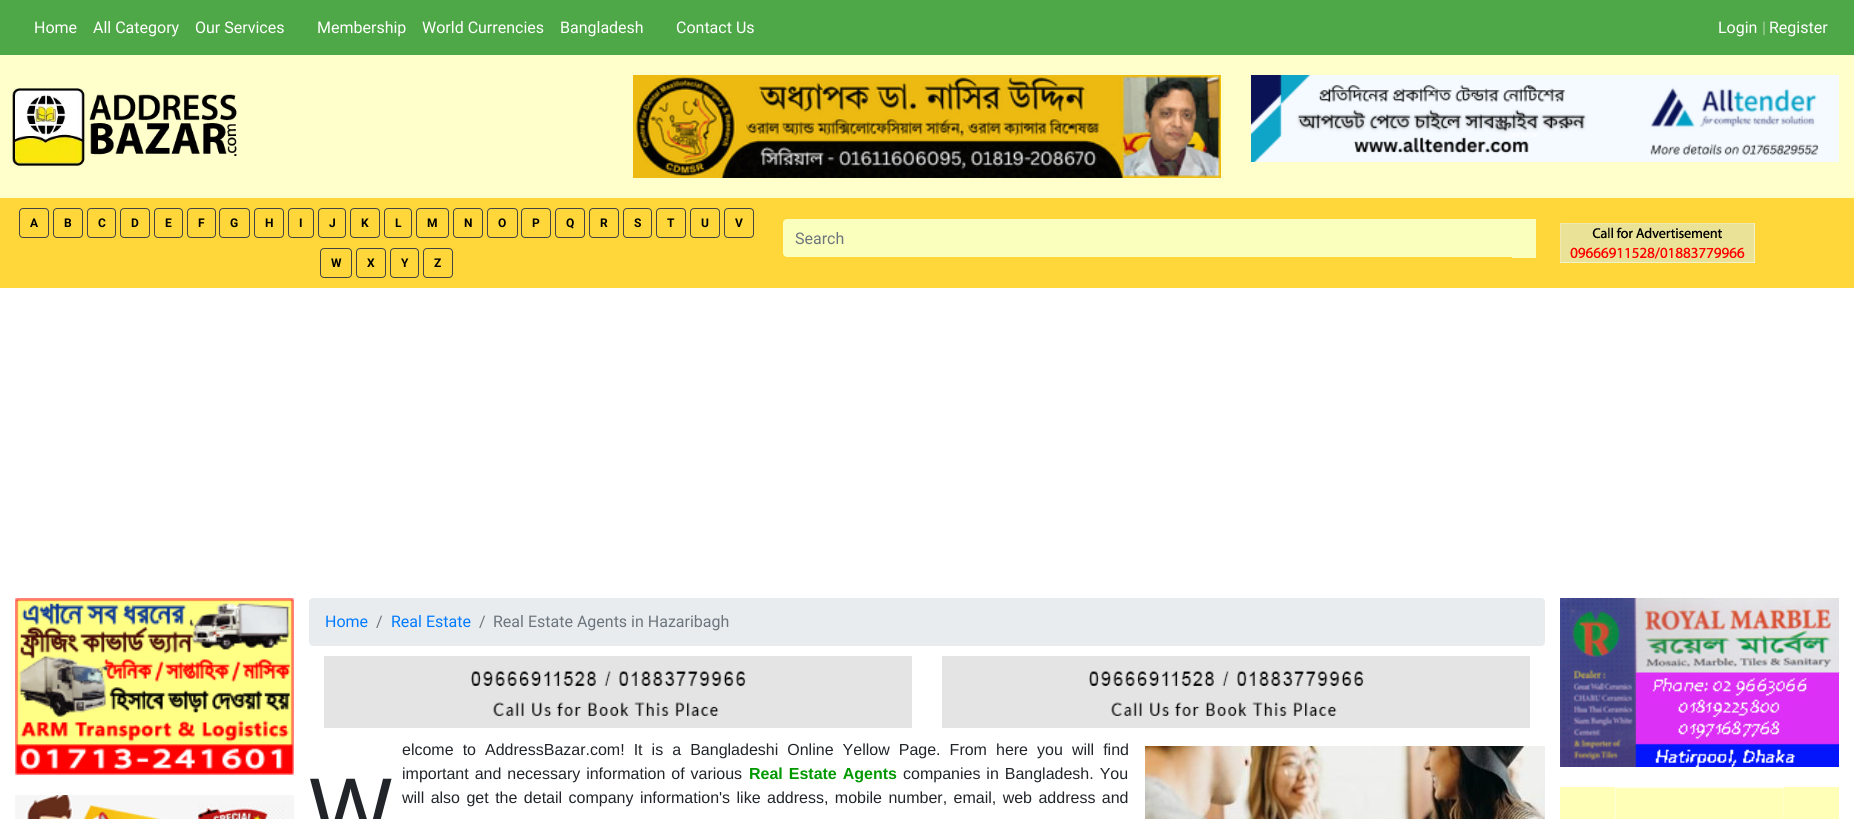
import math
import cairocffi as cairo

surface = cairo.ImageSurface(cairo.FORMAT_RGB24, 1854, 819)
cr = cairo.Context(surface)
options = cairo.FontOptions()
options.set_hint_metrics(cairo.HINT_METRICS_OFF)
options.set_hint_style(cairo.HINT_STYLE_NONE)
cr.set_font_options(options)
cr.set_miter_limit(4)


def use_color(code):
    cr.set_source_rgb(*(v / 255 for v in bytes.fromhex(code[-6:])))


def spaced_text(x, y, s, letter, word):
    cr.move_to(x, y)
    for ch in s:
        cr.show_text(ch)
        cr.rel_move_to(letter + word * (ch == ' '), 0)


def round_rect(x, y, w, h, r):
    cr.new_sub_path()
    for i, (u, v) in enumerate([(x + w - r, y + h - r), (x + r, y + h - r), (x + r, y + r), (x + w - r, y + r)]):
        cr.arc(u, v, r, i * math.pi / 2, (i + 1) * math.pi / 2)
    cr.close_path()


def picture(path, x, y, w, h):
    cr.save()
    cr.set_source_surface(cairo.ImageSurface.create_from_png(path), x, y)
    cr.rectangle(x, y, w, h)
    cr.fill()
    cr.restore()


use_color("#ffffff")
cr.paint()
use_color("#4fa847")
cr.rectangle(0, 0, 1854, 55)
cr.fill()
cr.select_font_face("Roboto")
cr.set_font_size(16)
use_color("#ffffff")
cr.move_to(34, 33)
cr.show_text("Home")
cr.move_to(93, 33)
cr.show_text("All Category")
cr.move_to(195, 33)
cr.show_text("Our Services")
cr.move_to(317, 33)
cr.show_text("Membership")
cr.move_to(422, 33)
cr.show_text("World Currencies")
cr.move_to(560, 33)
cr.show_text("Bangladesh")
cr.move_to(676, 33)
cr.show_text("Contact Us")
cr.move_to(1718, 33)
cr.show_text("Login")
use_color("#a7d4a3")
cr.move_to(1762, 33)
cr.show_text("|")
use_color("#ffffff")
cr.move_to(1769, 33)
cr.show_text("Register")
use_color("#ffffcc")
cr.rectangle(0, 55, 1854, 143)
cr.fill()
picture("img1.png", 12, 88, 225, 78)
picture("img2.png", 633, 75, 588, 103)
picture("img3.png", 1251, 75, 588, 87)
use_color("#ffd73b")
cr.rectangle(0, 198, 1854, 90)
cr.fill()
round_rect(19.5, 208.5, 29, 29, 3.5)
use_color("#444444")
cr.set_line_width(1)
cr.stroke()
cr.select_font_face("Roboto", cairo.FONT_SLANT_NORMAL, cairo.FONT_WEIGHT_BOLD)
cr.set_font_size(12)
use_color("#000000")
cr.move_to(30, 227)
cr.show_text("A")
round_rect(53.5, 208.5, 29, 29, 3.5)
use_color("#444444")
cr.stroke()
use_color("#000000")
cr.move_to(64, 227)
cr.show_text("B")
round_rect(87.5, 208.5, 28, 29, 3.5)
use_color("#444444")
cr.stroke()
use_color("#000000")
cr.move_to(98, 227)
cr.show_text("C")
round_rect(120.5, 208.5, 29, 29, 3.5)
use_color("#444444")
cr.stroke()
use_color("#000000")
cr.move_to(131, 227)
cr.show_text("D")
round_rect(154.5, 208.5, 28, 29, 3.5)
use_color("#444444")
cr.stroke()
use_color("#000000")
cr.move_to(165, 227)
cr.show_text("E")
round_rect(187.5, 208.5, 28, 29, 3.5)
use_color("#444444")
cr.stroke()
use_color("#000000")
cr.move_to(198, 227)
cr.show_text("F")
round_rect(219.5, 208.5, 30, 29, 3.5)
use_color("#444444")
cr.stroke()
use_color("#000000")
cr.move_to(230, 227)
cr.show_text("G")
round_rect(254.5, 208.5, 29, 29, 3.5)
use_color("#444444")
cr.stroke()
use_color("#000000")
cr.move_to(265, 227)
cr.show_text("H")
round_rect(288.5, 208.5, 25, 29, 3.5)
use_color("#444444")
cr.stroke()
use_color("#000000")
cr.move_to(299, 227)
cr.show_text("I")
round_rect(318.5, 208.5, 27, 29, 3.5)
use_color("#444444")
cr.stroke()
use_color("#000000")
cr.move_to(329, 227)
cr.show_text("J")
round_rect(350.5, 208.5, 29, 29, 3.5)
use_color("#444444")
cr.stroke()
use_color("#000000")
cr.move_to(361, 227)
cr.show_text("K")
round_rect(384.5, 208.5, 27, 29, 3.5)
use_color("#444444")
cr.stroke()
use_color("#000000")
cr.move_to(395, 227)
cr.show_text("L")
round_rect(416.5, 208.5, 32, 29, 3.5)
use_color("#444444")
cr.stroke()
use_color("#000000")
cr.move_to(427, 227)
cr.show_text("M")
round_rect(453.5, 208.5, 29, 29, 3.5)
use_color("#444444")
cr.stroke()
use_color("#000000")
cr.move_to(464, 227)
cr.show_text("N")
round_rect(487.5, 208.5, 30, 29, 3.5)
use_color("#444444")
cr.stroke()
use_color("#000000")
cr.move_to(498, 227)
cr.show_text("O")
round_rect(521.5, 208.5, 29, 29, 3.5)
use_color("#444444")
cr.stroke()
use_color("#000000")
cr.move_to(532, 227)
cr.show_text("P")
round_rect(555.5, 208.5, 29, 29, 3.5)
use_color("#444444")
cr.stroke()
use_color("#000000")
cr.move_to(566, 227)
cr.show_text("Q")
round_rect(589.5, 208.5, 29, 29, 3.5)
use_color("#444444")
cr.stroke()
use_color("#000000")
cr.move_to(600, 227)
cr.show_text("R")
round_rect(623.5, 208.5, 28, 29, 3.5)
use_color("#444444")
cr.stroke()
use_color("#000000")
cr.move_to(634, 227)
cr.show_text("S")
round_rect(656.5, 208.5, 29, 29, 3.5)
use_color("#444444")
cr.stroke()
use_color("#000000")
cr.move_to(667, 227)
cr.show_text("T")
round_rect(690.5, 208.5, 29, 29, 3.5)
use_color("#444444")
cr.stroke()
use_color("#000000")
cr.move_to(701, 227)
cr.show_text("U")
round_rect(724.5, 208.5, 29, 29, 3.5)
use_color("#444444")
cr.stroke()
use_color("#000000")
cr.move_to(735, 227)
cr.show_text("V")
round_rect(320.5, 248.5, 31, 29, 3.5)
use_color("#444444")
cr.stroke()
use_color("#000000")
cr.move_to(331, 267)
cr.show_text("W")
round_rect(356.5, 248.5, 29, 29, 3.5)
use_color("#444444")
cr.stroke()
use_color("#000000")
cr.move_to(367, 267)
cr.show_text("X")
round_rect(390.5, 248.5, 28, 29, 3.5)
use_color("#444444")
cr.stroke()
use_color("#000000")
cr.move_to(401, 267)
cr.show_text("Y")
round_rect(423.5, 248.5, 29, 29, 3.5)
use_color("#444444")
cr.stroke()
use_color("#000000")
cr.move_to(434, 267)
cr.show_text("Z")
use_color("#faffbd")
cr.rectangle(1512, 219, 24, 39)
cr.fill()
cr.new_path()
cr.move_to(787, 219)
cr.line_to(1513, 219)
cr.line_to(1513, 257)
cr.line_to(787, 257)
cr.curve_to(785, 257, 783, 255, 783, 253)
cr.line_to(783, 223)
cr.curve_to(783, 221, 785, 219, 787, 219)
cr.close_path()
cr.fill()
cr.select_font_face("Roboto")
cr.set_font_size(16)
use_color("#6c757d")
cr.move_to(795, 244)
cr.show_text("Search")
picture("img4.png", 1560, 223, 195, 40)
picture("img5.png", 15, 598, 279, 177)
picture("img6.png", 15, 795, 279, 24)
use_color("#e9ecef")
round_rect(309, 598, 1236, 48, 4)
cr.fill()
use_color("#007bff")
cr.move_to(325, 627)
cr.show_text("Home")
use_color("#6c757d")
cr.move_to(376, 627)
cr.show_text("/")
use_color("#007bff")
cr.move_to(391, 627)
cr.show_text("Real Estate")
use_color("#6c757d")
cr.move_to(479, 627)
cr.show_text("/")
cr.move_to(493, 627)
cr.show_text("Real Estate Agents in Hazaribagh")
picture("img7.png", 324, 656, 588, 72)
picture("img8.png", 942, 656, 588, 72)
cr.select_font_face("Noto Sans")
cr.set_font_size(90)
use_color("#212529")
cr.move_to(309, 843)
cr.show_text("W")
cr.select_font_face("Liberation Sans")
cr.set_font_size(16)
spaced_text(402, 755, "elcome to AddressBazar.com! It is a Bangladeshi Online Yellow Page. From here you will find", 0, 4.6)
spaced_text(402, 779, "important and necessary information of various", 0, 1.5)
cr.select_font_face("Liberation Sans", cairo.FONT_SLANT_NORMAL, cairo.FONT_WEIGHT_BOLD)
use_color("#009900")
spaced_text(749, 779, "Real Estate Agents", 0, 1.5)
cr.select_font_face("Liberation Sans")
use_color("#212529")
spaced_text(903, 779, "companies in Bangladesh. You", 0, 1.5)
spaced_text(402, 803, "will also get the detail company information's like address, mobile number, email, web address and", 0, 2)
picture("img9.png", 1145, 746, 400, 73)
picture("img10.png", 1560, 598, 279, 169)
picture("img11.png", 1560, 787, 279, 32)
surface.write_to_png("result.png")
